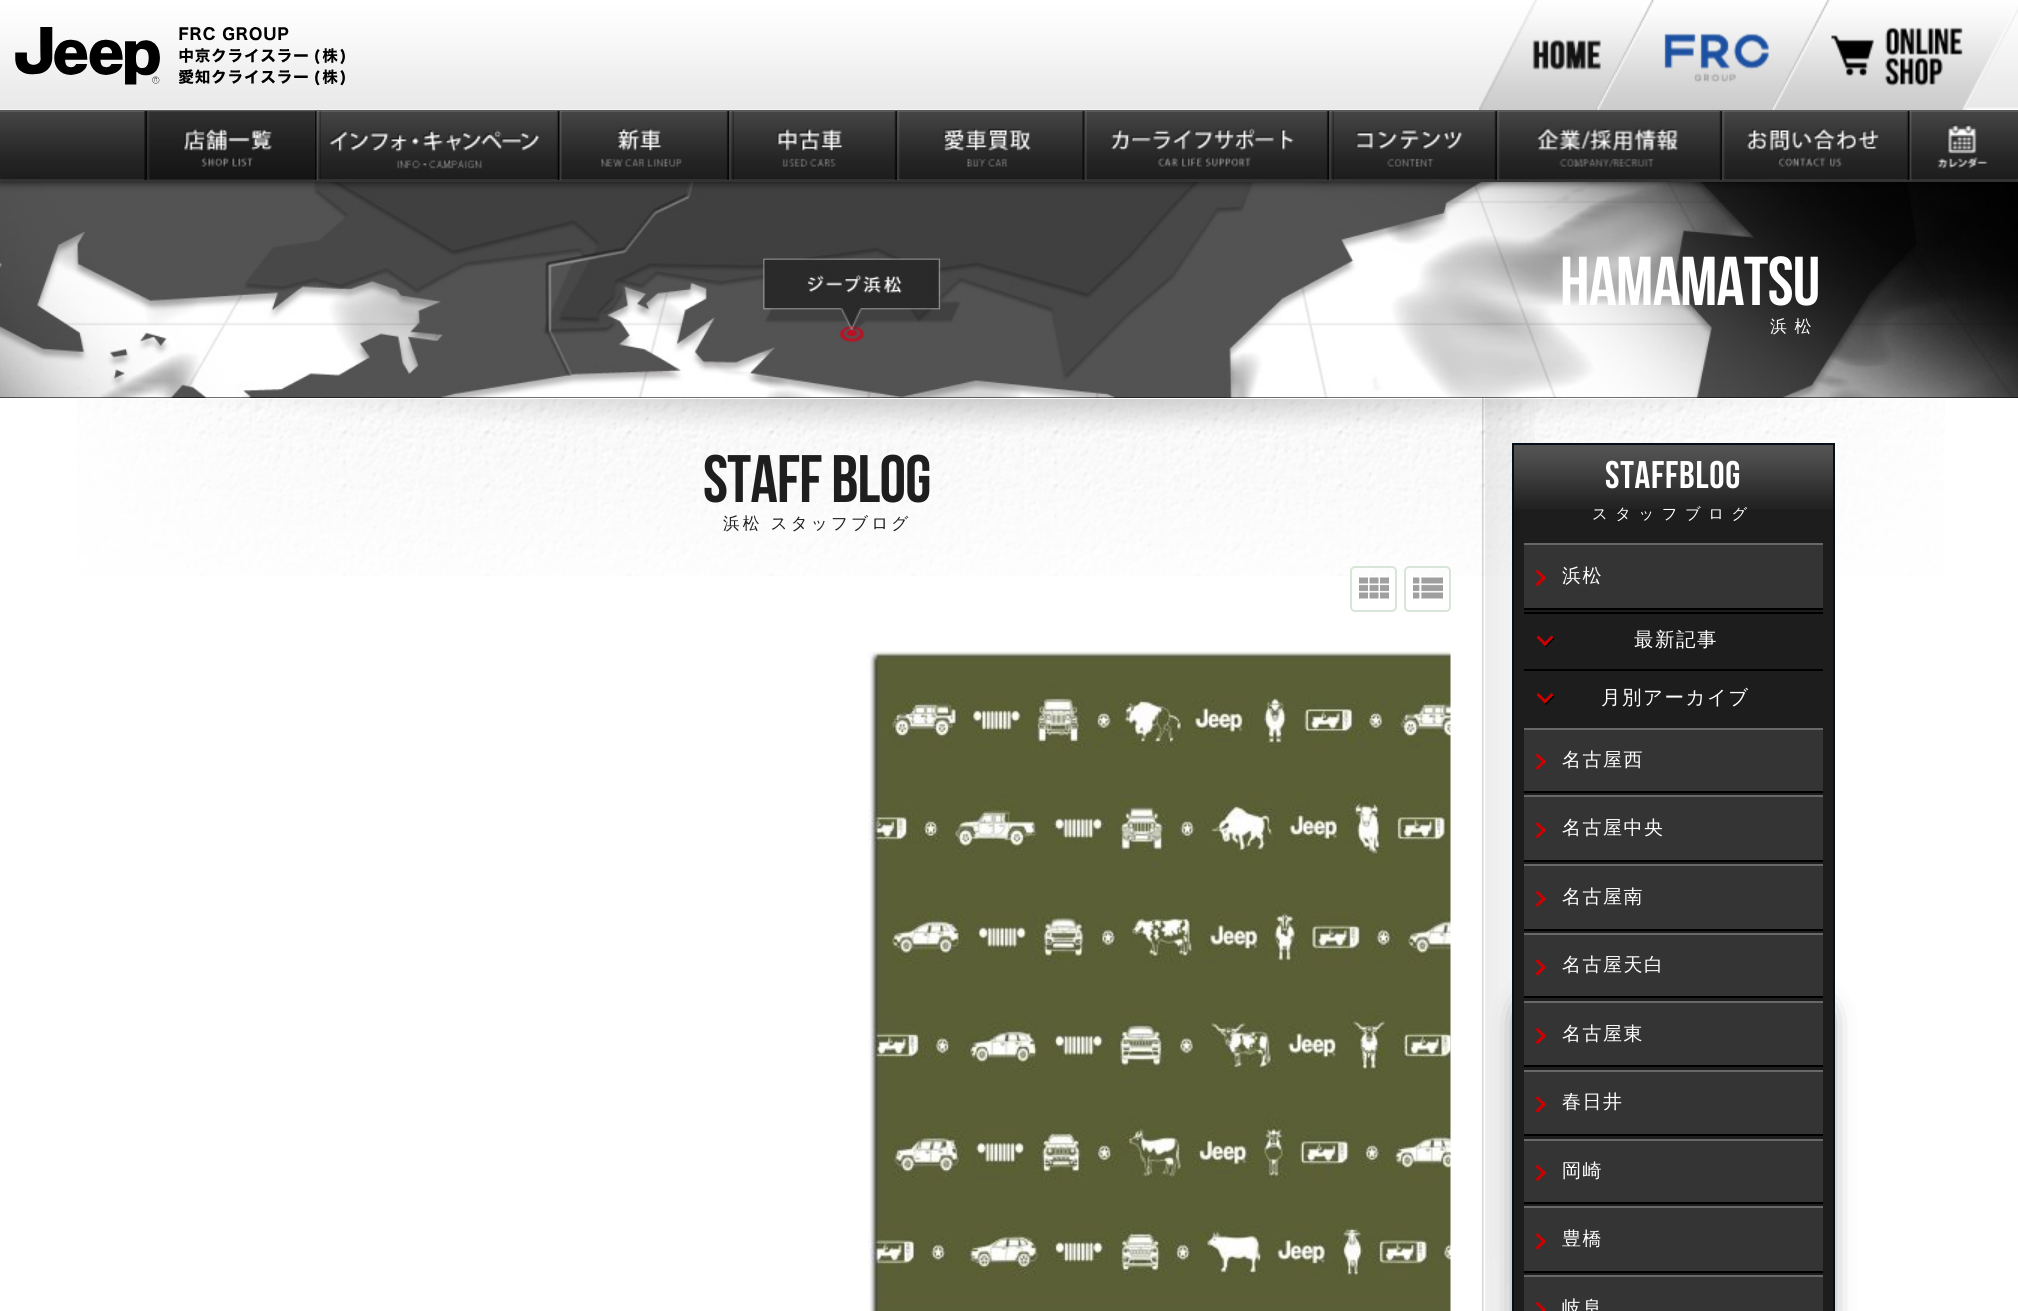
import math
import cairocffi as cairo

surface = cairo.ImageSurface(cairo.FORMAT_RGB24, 2018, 1311)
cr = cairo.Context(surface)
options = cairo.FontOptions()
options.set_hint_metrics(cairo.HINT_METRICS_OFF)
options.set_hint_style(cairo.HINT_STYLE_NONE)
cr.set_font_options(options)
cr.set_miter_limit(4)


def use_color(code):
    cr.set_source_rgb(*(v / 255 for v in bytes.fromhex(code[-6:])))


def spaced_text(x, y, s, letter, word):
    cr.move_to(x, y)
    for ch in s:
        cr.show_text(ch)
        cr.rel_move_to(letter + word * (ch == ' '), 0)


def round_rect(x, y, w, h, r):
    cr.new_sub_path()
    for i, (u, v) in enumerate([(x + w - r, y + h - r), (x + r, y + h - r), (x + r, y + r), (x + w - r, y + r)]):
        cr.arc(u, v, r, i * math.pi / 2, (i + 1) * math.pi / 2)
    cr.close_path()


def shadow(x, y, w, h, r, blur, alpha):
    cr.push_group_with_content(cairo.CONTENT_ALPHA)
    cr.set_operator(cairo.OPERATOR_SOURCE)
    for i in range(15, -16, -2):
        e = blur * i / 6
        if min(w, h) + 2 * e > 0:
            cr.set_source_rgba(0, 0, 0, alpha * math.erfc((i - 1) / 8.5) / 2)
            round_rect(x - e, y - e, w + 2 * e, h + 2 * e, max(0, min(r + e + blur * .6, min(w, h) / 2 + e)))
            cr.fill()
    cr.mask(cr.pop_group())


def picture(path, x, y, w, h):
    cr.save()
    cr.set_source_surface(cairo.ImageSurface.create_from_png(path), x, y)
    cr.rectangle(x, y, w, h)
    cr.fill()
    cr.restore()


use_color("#ffffff")
cr.paint()
use_color("#000000")
cr.rectangle(0, 397, 2018, 1)
cr.fill()
picture("img22.png", 0, 182, 2018, 216)
use_color("#000000")
shadow(0, 0, 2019, 182, 0, 4.5, 0.8)
picture("img1.png", 0, 0, 1829, 110)
picture("img2.png", 0, 112, 2018, 68)
use_color("#5a5a5a")
cr.rectangle(0, 110, 2018, 2)
cr.fill()
use_color("#333333")
cr.rectangle(0, 180, 2018, 2)
cr.fill()
picture("img3.png", 1479, 0, 163, 110)
picture("img4.png", 1596, 0, 226, 110)
picture("img5.png", 1773, 0, 245, 110)
picture("img6.png", 144, 111, 6, 69)
cr.set_source_rgba(0, 0, 0, 0.3)
cr.rectangle(144, 111, 170, 69)
cr.fill()
picture("img7.png", 183, 128, 89, 39)
picture("img8.png", 314, 111, 7, 69)
picture("img9.png", 328, 130, 211, 39)
picture("img10.png", 556, 111, 6, 69)
picture("img11.png", 601, 127, 81, 40)
picture("img12.png", 726, 111, 8, 69)
picture("img13.png", 777, 128, 65, 39)
picture("img6.png", 894, 111, 6, 69)
picture("img14.png", 943, 128, 88, 39)
picture("img15.png", 1082, 111, 5, 69)
picture("img16.png", 1110, 127, 184, 40)
picture("img12.png", 1326, 111, 8, 69)
picture("img17.png", 1356, 129, 107, 38)
picture("img6.png", 1494, 111, 6, 69)
picture("img18.png", 1537, 127, 141, 41)
picture("img6.png", 1719, 111, 6, 69)
picture("img19.png", 1746, 128, 133, 39)
picture("img10.png", 1906, 111, 6, 69)
picture("img20.png", 1937, 124, 51, 45)
picture("img21.png", 15, 27, 330, 59)
picture("img23.png", 0, 397, 2018, 1)
cr.select_font_face("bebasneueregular")
cr.set_font_size(69)
use_color("#ffffff")
spaced_text(1560, 305, "HAMAMATSU", -0.75, 0)
cr.select_font_face("WenQuanYi Zen Hei Medium")
cr.set_font_size(17)
spaced_text(1770, 332, "浜松", 7.5, 0)
picture("img24.png", 77, 399, 1868, 177)
cr.select_font_face("bebasneueregular")
cr.set_font_size(67)
use_color("#1e1e1e")
spaced_text(703, 502, "Staff Blog", -0.75, 0)
cr.select_font_face("WenQuanYi Zen Hei Medium")
cr.set_font_size(16.75)
spaced_text(723, 529, "浜松 スタッフブログ", 3, 0)
picture("img25.png", 1359, 577, 30, 22)
round_rect(1351, 567, 45, 44, 4)
use_color("#d8e5d8")
cr.stroke()
picture("img26.png", 1413, 577, 30, 22)
round_rect(1405, 567, 45, 44, 4)
cr.stroke()
picture("img27.png", 862, 651, 589, 660)
use_color("#000000")
shadow(1527, 1002, 293, 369, 15, 15, 0.5)
shadow(1527, 1002, 293, 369, 15, 15, 0.5)
picture("img28.png", 1482, 397, 53, 914)
use_color("#1d1d1d")
cr.rectangle(1514, 509, 319, 802)
cr.fill()
picture("img29.png", 1514, 445, 319, 64)
cr.rectangle(1513, 444, 321, 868)
use_color("#050e19")
cr.stroke()
cr.select_font_face("bebasneueregular")
cr.set_font_size(38.5)
use_color("#ffffff")
spaced_text(1605, 488, "STAFFBLOG", 0.75, 0)
cr.select_font_face("WenQuanYi Zen Hei Medium")
cr.set_font_size(15.4)
spaced_text(1592, 519, "スタッフブログ", 7.5, 0)
use_color("#343434")
cr.rectangle(1524, 545, 299, 63)
cr.fill()
use_color("#696868")
cr.rectangle(1524, 543, 299, 2)
cr.fill()
use_color("#000000")
cr.rectangle(1524, 608, 299, 2)
cr.fill()
use_color("#cc0000")
cr.new_path()
cr.move_to(1537.5, 569.5)
cr.line_to(1546, 578)
cr.line_to(1544, 580)
cr.line_to(1535.5, 571.5)
cr.close_path()
cr.fill()
cr.new_path()
cr.move_to(1544, 575.5)
cr.line_to(1546, 578)
cr.line_to(1537.5, 586.5)
cr.line_to(1535.5, 584)
cr.close_path()
cr.fill()
cr.set_font_size(19)
use_color("#ffffff")
spaced_text(1562, 582, "浜松", 1.5, 0)
use_color("#000000")
cr.rectangle(1524, 612, 299, 2)
cr.fill()
cr.new_path()
cr.move_to(1554.5, 638.5)
cr.line_to(1546, 647)
cr.line_to(1545, 646)
cr.line_to(1553.5, 637.5)
cr.line_to(1546, 630)
cr.close_path()
cr.fill()
use_color("#cc0000")
cr.new_path()
cr.move_to(1553.5, 637.5)
cr.line_to(1545, 646)
cr.line_to(1543, 644)
cr.line_to(1551.5, 635.5)
cr.close_path()
cr.fill()
cr.new_path()
cr.move_to(1547, 644)
cr.line_to(1545, 646)
cr.line_to(1536.5, 637.5)
cr.line_to(1538.5, 635.5)
cr.close_path()
cr.fill()
cr.set_font_size(19.5)
use_color("#ffffff")
spaced_text(1634, 646, "最新記事", 1.5, 0)
use_color("#000000")
cr.rectangle(1524, 669, 299, 2)
cr.fill()
cr.new_path()
cr.move_to(1554.5, 696.5)
cr.line_to(1553.5, 695.5)
cr.line_to(1545, 703.5)
cr.line_to(1537.5, 696.5)
cr.line_to(1546, 705)
cr.close_path()
cr.fill()
use_color("#cc0000")
cr.new_path()
cr.move_to(1553.5, 695)
cr.line_to(1545, 703.5)
cr.line_to(1543, 701.5)
cr.line_to(1551.5, 693)
cr.close_path()
cr.fill()
cr.new_path()
cr.move_to(1547, 701.5)
cr.line_to(1545, 703.5)
cr.line_to(1536.5, 695)
cr.line_to(1538.5, 693)
cr.close_path()
cr.fill()
use_color("#ffffff")
spaced_text(1601, 704, "月別アーカイブ", 1.5, 0)
use_color("#343434")
cr.rectangle(1524, 730, 299, 61)
cr.fill()
use_color("#696868")
cr.rectangle(1524, 728, 299, 2)
cr.fill()
use_color("#000000")
cr.rectangle(1524, 791, 299, 2)
cr.fill()
use_color("#cc0000")
cr.new_path()
cr.move_to(1537.5, 753.5)
cr.line_to(1546, 761.5)
cr.line_to(1544, 764)
cr.line_to(1535.5, 755.5)
cr.close_path()
cr.fill()
cr.new_path()
cr.move_to(1544, 759.5)
cr.line_to(1546, 761.5)
cr.line_to(1537.5, 770)
cr.line_to(1535.5, 768)
cr.close_path()
cr.fill()
cr.set_font_size(19)
use_color("#ffffff")
spaced_text(1562, 766, "名古屋西", 1.5, 0)
use_color("#343434")
cr.rectangle(1524, 797, 299, 63)
cr.fill()
use_color("#696868")
cr.rectangle(1524, 795, 299, 2)
cr.fill()
use_color("#000000")
cr.rectangle(1524, 860, 299, 2)
cr.fill()
use_color("#cc0000")
cr.new_path()
cr.move_to(1537.5, 822)
cr.line_to(1546, 830)
cr.line_to(1544, 832.5)
cr.line_to(1535.5, 824)
cr.close_path()
cr.fill()
cr.new_path()
cr.move_to(1544, 828)
cr.line_to(1546, 830)
cr.line_to(1537.5, 838.5)
cr.line_to(1535.5, 836.5)
cr.close_path()
cr.fill()
use_color("#ffffff")
spaced_text(1562, 834, "名古屋中央", 1.5, 0)
use_color("#343434")
cr.rectangle(1524, 866, 299, 63)
cr.fill()
use_color("#696868")
cr.rectangle(1524, 864, 299, 2)
cr.fill()
use_color("#000000")
cr.rectangle(1524, 929, 299, 2)
cr.fill()
use_color("#cc0000")
cr.new_path()
cr.move_to(1537.5, 890.5)
cr.line_to(1546, 899)
cr.line_to(1544, 901)
cr.line_to(1535.5, 892.5)
cr.close_path()
cr.fill()
cr.new_path()
cr.move_to(1544, 896.5)
cr.line_to(1546, 899)
cr.line_to(1537.5, 907)
cr.line_to(1535.5, 905)
cr.close_path()
cr.fill()
use_color("#ffffff")
spaced_text(1562, 903, "名古屋南", 1.5, 0)
use_color("#343434")
cr.rectangle(1524, 935, 299, 61)
cr.fill()
use_color("#696868")
cr.rectangle(1524, 933, 299, 2)
cr.fill()
use_color("#000000")
cr.rectangle(1524, 996, 299, 2)
cr.fill()
use_color("#cc0000")
cr.new_path()
cr.move_to(1537.5, 959)
cr.line_to(1546, 967.5)
cr.line_to(1544, 969.5)
cr.line_to(1535.5, 961)
cr.close_path()
cr.fill()
cr.new_path()
cr.move_to(1544, 965)
cr.line_to(1546, 967.5)
cr.line_to(1537.5, 976)
cr.line_to(1535.5, 973.5)
cr.close_path()
cr.fill()
use_color("#ffffff")
spaced_text(1562, 971, "名古屋天白", 1.5, 0)
use_color("#343434")
cr.rectangle(1524, 1003, 299, 62)
cr.fill()
use_color("#696868")
cr.rectangle(1524, 1001, 299, 2)
cr.fill()
use_color("#000000")
cr.rectangle(1524, 1065, 299, 2)
cr.fill()
use_color("#cc0000")
cr.new_path()
cr.move_to(1537.5, 1027.5)
cr.line_to(1546, 1036)
cr.line_to(1544, 1038)
cr.line_to(1535.5, 1029.5)
cr.close_path()
cr.fill()
cr.new_path()
cr.move_to(1544, 1033.5)
cr.line_to(1546, 1036)
cr.line_to(1537.5, 1044.5)
cr.line_to(1535.5, 1042)
cr.close_path()
cr.fill()
use_color("#ffffff")
spaced_text(1562, 1040, "名古屋東", 1.5, 0)
use_color("#343434")
cr.rectangle(1524, 1072, 299, 62)
cr.fill()
use_color("#696868")
cr.rectangle(1524, 1070, 299, 2)
cr.fill()
use_color("#000000")
cr.rectangle(1524, 1134, 299, 2)
cr.fill()
use_color("#cc0000")
cr.new_path()
cr.move_to(1537.5, 1096)
cr.line_to(1546, 1104.5)
cr.line_to(1544, 1106.5)
cr.line_to(1535.5, 1098)
cr.close_path()
cr.fill()
cr.new_path()
cr.move_to(1544, 1102)
cr.line_to(1546, 1104.5)
cr.line_to(1537.5, 1113)
cr.line_to(1535.5, 1110.5)
cr.close_path()
cr.fill()
use_color("#ffffff")
spaced_text(1562, 1108, "春日井", 1.5, 0)
use_color("#343434")
cr.rectangle(1524, 1141, 299, 61)
cr.fill()
use_color("#696868")
cr.rectangle(1524, 1139, 299, 2)
cr.fill()
use_color("#000000")
cr.rectangle(1524, 1202, 299, 2)
cr.fill()
use_color("#cc0000")
cr.new_path()
cr.move_to(1537.5, 1164.5)
cr.line_to(1546, 1173)
cr.line_to(1544, 1175)
cr.line_to(1535.5, 1166.5)
cr.close_path()
cr.fill()
cr.new_path()
cr.move_to(1544, 1170.5)
cr.line_to(1546, 1173)
cr.line_to(1537.5, 1181.5)
cr.line_to(1535.5, 1179)
cr.close_path()
cr.fill()
use_color("#ffffff")
spaced_text(1562, 1177, "岡崎", 1.5, 0)
use_color("#343434")
cr.rectangle(1524, 1208, 299, 63)
cr.fill()
use_color("#696868")
cr.rectangle(1524, 1206, 299, 2)
cr.fill()
use_color("#000000")
cr.rectangle(1524, 1271, 299, 2)
cr.fill()
use_color("#cc0000")
cr.new_path()
cr.move_to(1537.5, 1233)
cr.line_to(1546, 1241.5)
cr.line_to(1544, 1243.5)
cr.line_to(1535.5, 1235)
cr.close_path()
cr.fill()
cr.new_path()
cr.move_to(1544, 1239)
cr.line_to(1546, 1241.5)
cr.line_to(1537.5, 1250)
cr.line_to(1535.5, 1247.5)
cr.close_path()
cr.fill()
use_color("#ffffff")
spaced_text(1562, 1245, "豊橋", 1.5, 0)
use_color("#343434")
cr.rectangle(1524, 1277, 299, 34)
cr.fill()
use_color("#696868")
cr.rectangle(1524, 1275, 299, 2)
cr.fill()
use_color("#cc0000")
cr.new_path()
cr.move_to(1537.5, 1301.5)
cr.line_to(1546, 1310)
cr.line_to(1544, 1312)
cr.line_to(1535.5, 1303.5)
cr.close_path()
cr.fill()
cr.new_path()
cr.move_to(1544, 1307.5)
cr.line_to(1546, 1310)
cr.line_to(1537.5, 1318.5)
cr.line_to(1535.5, 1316)
cr.close_path()
cr.fill()
use_color("#ffffff")
spaced_text(1562, 1314, "岐阜", 1.5, 0)
surface.write_to_png("result.png")
